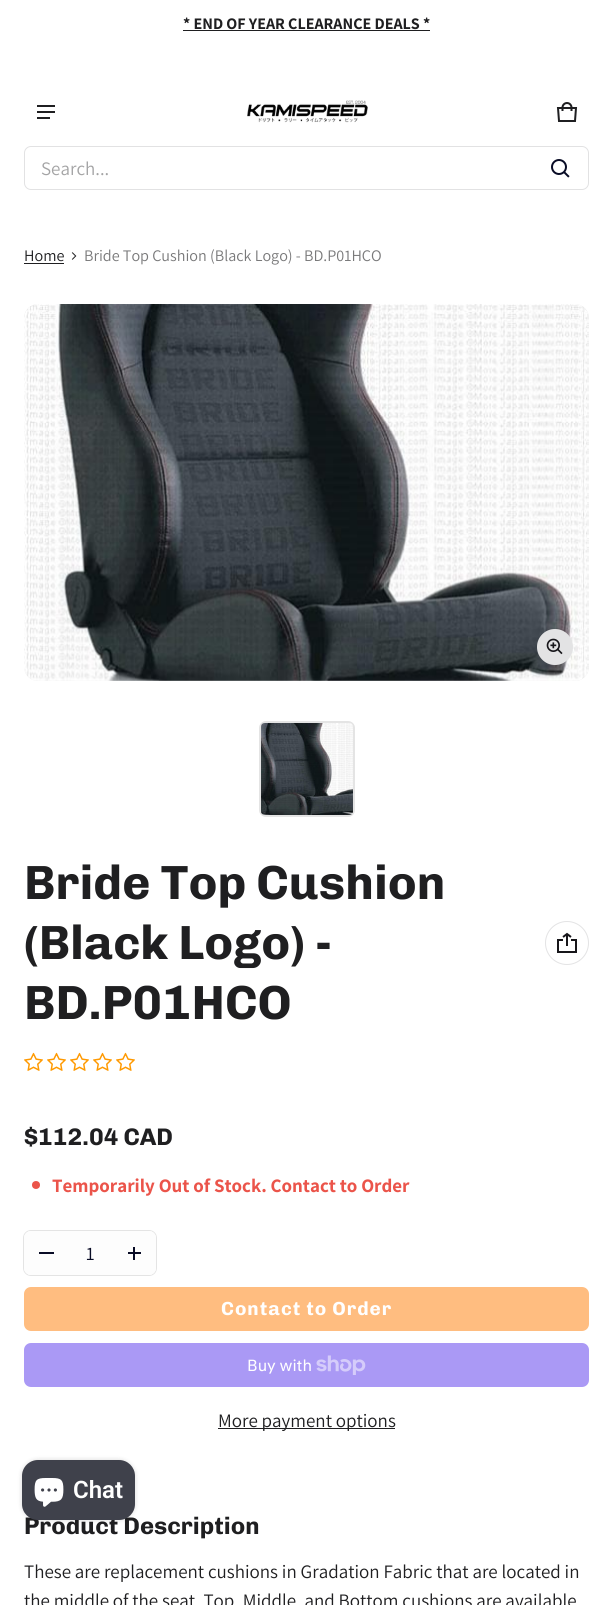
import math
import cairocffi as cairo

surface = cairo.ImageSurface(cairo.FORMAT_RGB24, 613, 1605)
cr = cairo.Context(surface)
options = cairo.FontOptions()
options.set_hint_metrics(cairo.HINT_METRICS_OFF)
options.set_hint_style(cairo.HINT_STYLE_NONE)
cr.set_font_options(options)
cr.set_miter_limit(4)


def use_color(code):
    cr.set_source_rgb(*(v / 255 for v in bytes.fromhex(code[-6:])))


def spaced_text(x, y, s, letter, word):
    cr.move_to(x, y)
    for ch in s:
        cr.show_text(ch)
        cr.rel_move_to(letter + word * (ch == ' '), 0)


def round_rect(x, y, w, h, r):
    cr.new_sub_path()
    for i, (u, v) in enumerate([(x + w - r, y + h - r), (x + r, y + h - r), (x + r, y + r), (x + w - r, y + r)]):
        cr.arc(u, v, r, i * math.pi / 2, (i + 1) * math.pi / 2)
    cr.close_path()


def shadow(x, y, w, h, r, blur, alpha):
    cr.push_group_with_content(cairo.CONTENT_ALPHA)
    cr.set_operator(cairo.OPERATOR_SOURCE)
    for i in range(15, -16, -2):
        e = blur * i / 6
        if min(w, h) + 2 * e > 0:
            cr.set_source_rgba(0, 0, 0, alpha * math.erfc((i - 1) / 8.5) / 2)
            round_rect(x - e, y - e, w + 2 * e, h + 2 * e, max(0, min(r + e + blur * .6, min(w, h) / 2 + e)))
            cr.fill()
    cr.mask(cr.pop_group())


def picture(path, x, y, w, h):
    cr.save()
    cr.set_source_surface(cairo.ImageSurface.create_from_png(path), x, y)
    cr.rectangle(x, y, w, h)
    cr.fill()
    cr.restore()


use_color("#ffffff")
cr.paint()
cr.select_font_face("Assistant", cairo.FONT_SLANT_NORMAL, cairo.FONT_WEIGHT_BOLD)
cr.set_font_size(16.1)
use_color("#1f1f21")
cr.move_to(183, 29)
cr.show_text("* END OF YEAR CLEARANCE DEALS *")
cr.rectangle(183, 30, 247, 1)
cr.fill()
cr.rectangle(37, 105, 18, 2)
cr.fill()
cr.rectangle(37, 111, 18, 2)
cr.fill()
cr.rectangle(37, 117, 13, 2)
cr.fill()
picture("img1.png", 247, 100, 121, 23)
picture("img2.png", 556, 102, 22, 20)
round_rect(24.5, 146.5, 564, 43, 6.5)
use_color("#e2e2e3")
cr.set_line_width(1)
cr.stroke()
cr.select_font_face("Assistant")
cr.set_font_size(19)
use_color("#a4a4a5")
cr.move_to(41, 175)
cr.show_text("Search...")
picture("img3.png", 551, 159, 19, 19)
cr.set_font_size(16.1)
use_color("#1f1f21")
cr.move_to(24, 261)
cr.show_text("Home")
cr.rectangle(24, 263, 40, 1)
cr.fill()
picture("img4.png", 71, 252, 6, 8)
use_color("#79797a")
cr.move_to(84, 261)
cr.show_text("Bride Top Cushion (Black Logo) - BD.P01HCO")
use_color("#efefef")
round_rect(24, 304, 565, 377, 14)
cr.fill()
picture("img5.png", 24, 304, 565, 377)
use_color("#ffffff")
cr.arc(555, 647, 18, 0, 2 * math.pi)
cr.fill()
cr.set_source_rgba(0.09, 0.086, 0.102, 0.12)
cr.new_path()
cr.move_to(555, 629)
cr.curve_to(565, 629, 573, 637, 573, 647)
cr.curve_to(573, 657, 565, 665, 555, 665)
cr.curve_to(545, 665, 537, 657, 537, 647)
cr.curve_to(537, 637, 545, 629, 555, 629)
cr.close_path()
cr.fill()
picture("img6.png", 546, 638, 17, 17)
use_color("#e4e4e4")
round_rect(259, 721, 96, 96, 7)
cr.fill()
picture("img7.png", 261, 723, 92, 92)
cr.select_font_face("Chivo", cairo.FONT_SLANT_NORMAL, cairo.FONT_WEIGHT_BOLD)
cr.set_font_size(48)
use_color("#1f1f21")
cr.move_to(24, 899)
cr.show_text("Bride Top Cushion")
cr.move_to(24, 959)
cr.show_text("(Black Logo) -")
cr.move_to(24, 1019)
cr.show_text("BD.P01HCO")
cr.new_path()
cr.arc(567, 943, 21.5, 0, 2 * math.pi)
use_color("#e3e3e4")
cr.stroke()
picture("img8.png", 557, 932, 20, 21)
picture("img9.png", 24, 1052, 19, 19)
picture("img9.png", 47, 1052, 19, 19)
picture("img9.png", 70, 1052, 19, 19)
picture("img9.png", 93, 1052, 19, 19)
picture("img9.png", 116, 1052, 19, 19)
cr.set_font_size(24)
use_color("#1f1f21")
cr.move_to(24, 1145)
cr.show_text("$112.04 CAD")
use_color("#eb544a")
cr.new_path()
cr.arc(36, 1185, 4, 0, 2 * math.pi)
cr.fill()
cr.select_font_face("Assistant", cairo.FONT_SLANT_NORMAL, cairo.FONT_WEIGHT_BOLD)
cr.set_font_size(19)
cr.move_to(52, 1192)
cr.show_text("Temporarily Out of Stock. Contact to Order")
round_rect(23.5, 1230.5, 133, 45, 7.5)
use_color("#e4e4e4")
cr.stroke()
use_color("#fdfdfd")
round_rect(24, 1231, 132, 44, 7)
cr.fill()
use_color("#090c26")
cr.rectangle(39, 1252, 15, 2)
cr.fill()
cr.select_font_face("Assistant")
cr.move_to(86, 1260)
cr.show_text("1")
cr.rectangle(128, 1252, 13, 2)
cr.fill()
cr.rectangle(133, 1247, 2, 13)
cr.fill()
use_color("#ffbd80")
round_rect(24, 1287, 565, 44, 7)
cr.fill()
cr.select_font_face("Chivo", cairo.FONT_SLANT_NORMAL, cairo.FONT_WEIGHT_BOLD)
use_color("#ffffff")
spaced_text(221, 1315, "Contact to Order", 1, 0)
use_color("#aa99f5")
round_rect(24, 1343, 565, 44, 7)
cr.fill()
cr.select_font_face("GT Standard")
cr.set_font_size(16)
use_color("#ffffff")
cr.move_to(247, 1371)
cr.show_text("Buy with")
picture("img10.png", 316, 1355, 50, 20)
use_color("#1f1f21")
cr.rectangle(218, 1428, 177, 1)
cr.fill()
cr.select_font_face("Assistant")
cr.set_font_size(19)
cr.move_to(218, 1427)
cr.show_text("More payment options")
cr.select_font_face("Chivo", cairo.FONT_SLANT_NORMAL, cairo.FONT_WEIGHT_BOLD)
cr.set_font_size(24)
cr.move_to(24, 1534)
cr.show_text("Product Description")
cr.select_font_face("Assistant")
cr.set_font_size(19)
cr.move_to(24, 1578)
cr.show_text("These are replacement cushions in Gradation Fabric that are located in")
cr.move_to(24, 1607)
cr.show_text("the middle of the seat. Top, Middle, and Bottom cushions are available")
use_color("#000000")
shadow(22, 1460, 113, 60, 16, 2.5, 0.15)
use_color("#3f414b")
round_rect(22, 1460, 113, 60, 16)
cr.fill()
picture("img11.png", 34, 1478, 30, 29)
cr.select_font_face("Roboto SemiBold")
cr.set_font_size(24)
use_color("#ffffff")
cr.move_to(73, 1498)
cr.show_text("Chat")
surface.write_to_png("result.png")
